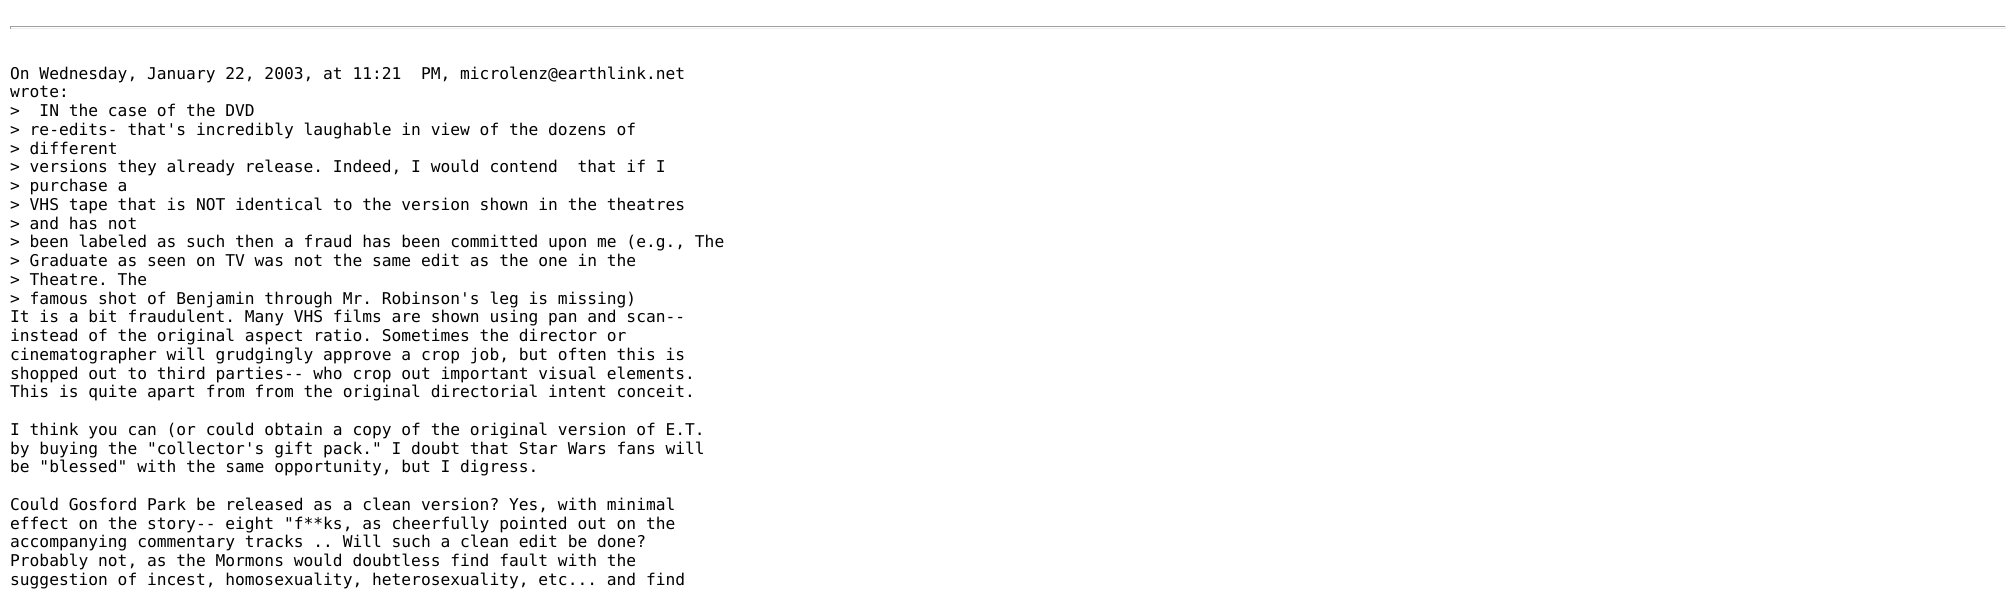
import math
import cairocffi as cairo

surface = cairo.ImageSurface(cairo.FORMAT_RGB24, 2016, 590)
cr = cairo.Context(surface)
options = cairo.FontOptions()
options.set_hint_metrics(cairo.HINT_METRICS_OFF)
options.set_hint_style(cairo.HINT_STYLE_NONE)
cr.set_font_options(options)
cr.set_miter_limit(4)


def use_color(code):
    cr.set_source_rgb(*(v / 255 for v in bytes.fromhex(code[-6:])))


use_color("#ffffff")
cr.paint()
use_color("#9f9f9f")
cr.rectangle(10, 26, 1996, 1)
cr.fill()
use_color("#eeeeee")
cr.rectangle(2005, 26, 1, 3)
cr.fill()
cr.rectangle(10, 28, 1996, 1)
cr.fill()
use_color("#9f9f9f")
cr.rectangle(10, 26, 1, 3)
cr.fill()
cr.select_font_face("DejaVu Sans Mono")
cr.set_font_size(16.25)
use_color("#000000")
cr.move_to(10, 79)
cr.show_text("On Wednesday, January 22, 2003, at 11:21  PM, microlenz@earthlink.net")
cr.move_to(10, 97)
cr.show_text("wrote:")
cr.move_to(10, 116)
cr.show_text(">  IN the case of the DVD")
cr.move_to(10, 135)
cr.show_text("> re-edits- that's incredibly laughable in view of the dozens of")
cr.move_to(10, 154)
cr.show_text("> different")
cr.move_to(10, 172)
cr.show_text("> versions they already release. Indeed, I would contend  that if I")
cr.move_to(10, 191)
cr.show_text("> purchase a")
cr.move_to(10, 210)
cr.show_text("> VHS tape that is NOT identical to the version shown in the theatres")
cr.move_to(10, 229)
cr.show_text("> and has not")
cr.move_to(10, 247)
cr.show_text("> been labeled as such then a fraud has been committed upon me (e.g., The")
cr.move_to(10, 266)
cr.show_text("> Graduate as seen on TV was not the same edit as the one in the")
cr.move_to(10, 285)
cr.show_text("> Theatre. The")
cr.move_to(10, 304)
cr.show_text("> famous shot of Benjamin through Mr. Robinson's leg is missing)")
cr.move_to(10, 322)
cr.show_text("It is a bit fraudulent. Many VHS films are shown using pan and scan--")
cr.move_to(10, 341)
cr.show_text("instead of the original aspect ratio. Sometimes the director or")
cr.move_to(10, 360)
cr.show_text("cinematographer will grudgingly approve a crop job, but often this is")
cr.move_to(10, 379)
cr.show_text("shopped out to third parties-- who crop out important visual elements.")
cr.move_to(10, 397)
cr.show_text("This is quite apart from from the original directorial intent conceit.")
cr.move_to(10, 435)
cr.show_text("I think you can (or could obtain a copy of the original version of E.T.")
cr.move_to(10, 454)
cr.show_text("by buying the \"collector's gift pack.\" I doubt that Star Wars fans will")
cr.move_to(10, 472)
cr.show_text("be \"blessed\" with the same opportunity, but I digress.")
cr.move_to(10, 510)
cr.show_text("Could Gosford Park be released as a clean version? Yes, with minimal")
cr.move_to(10, 529)
cr.show_text("effect on the story-- eight \"f**ks, as cheerfully pointed out on the")
cr.move_to(10, 547)
cr.show_text("accompanying commentary tracks .. Will such a clean edit be done?")
cr.move_to(10, 566)
cr.show_text("Probably not, as the Mormons would doubtless find fault with the")
cr.move_to(10, 585)
cr.show_text("suggestion of incest, homosexuality, heterosexuality, etc... and find")
surface.write_to_png("result.png")
